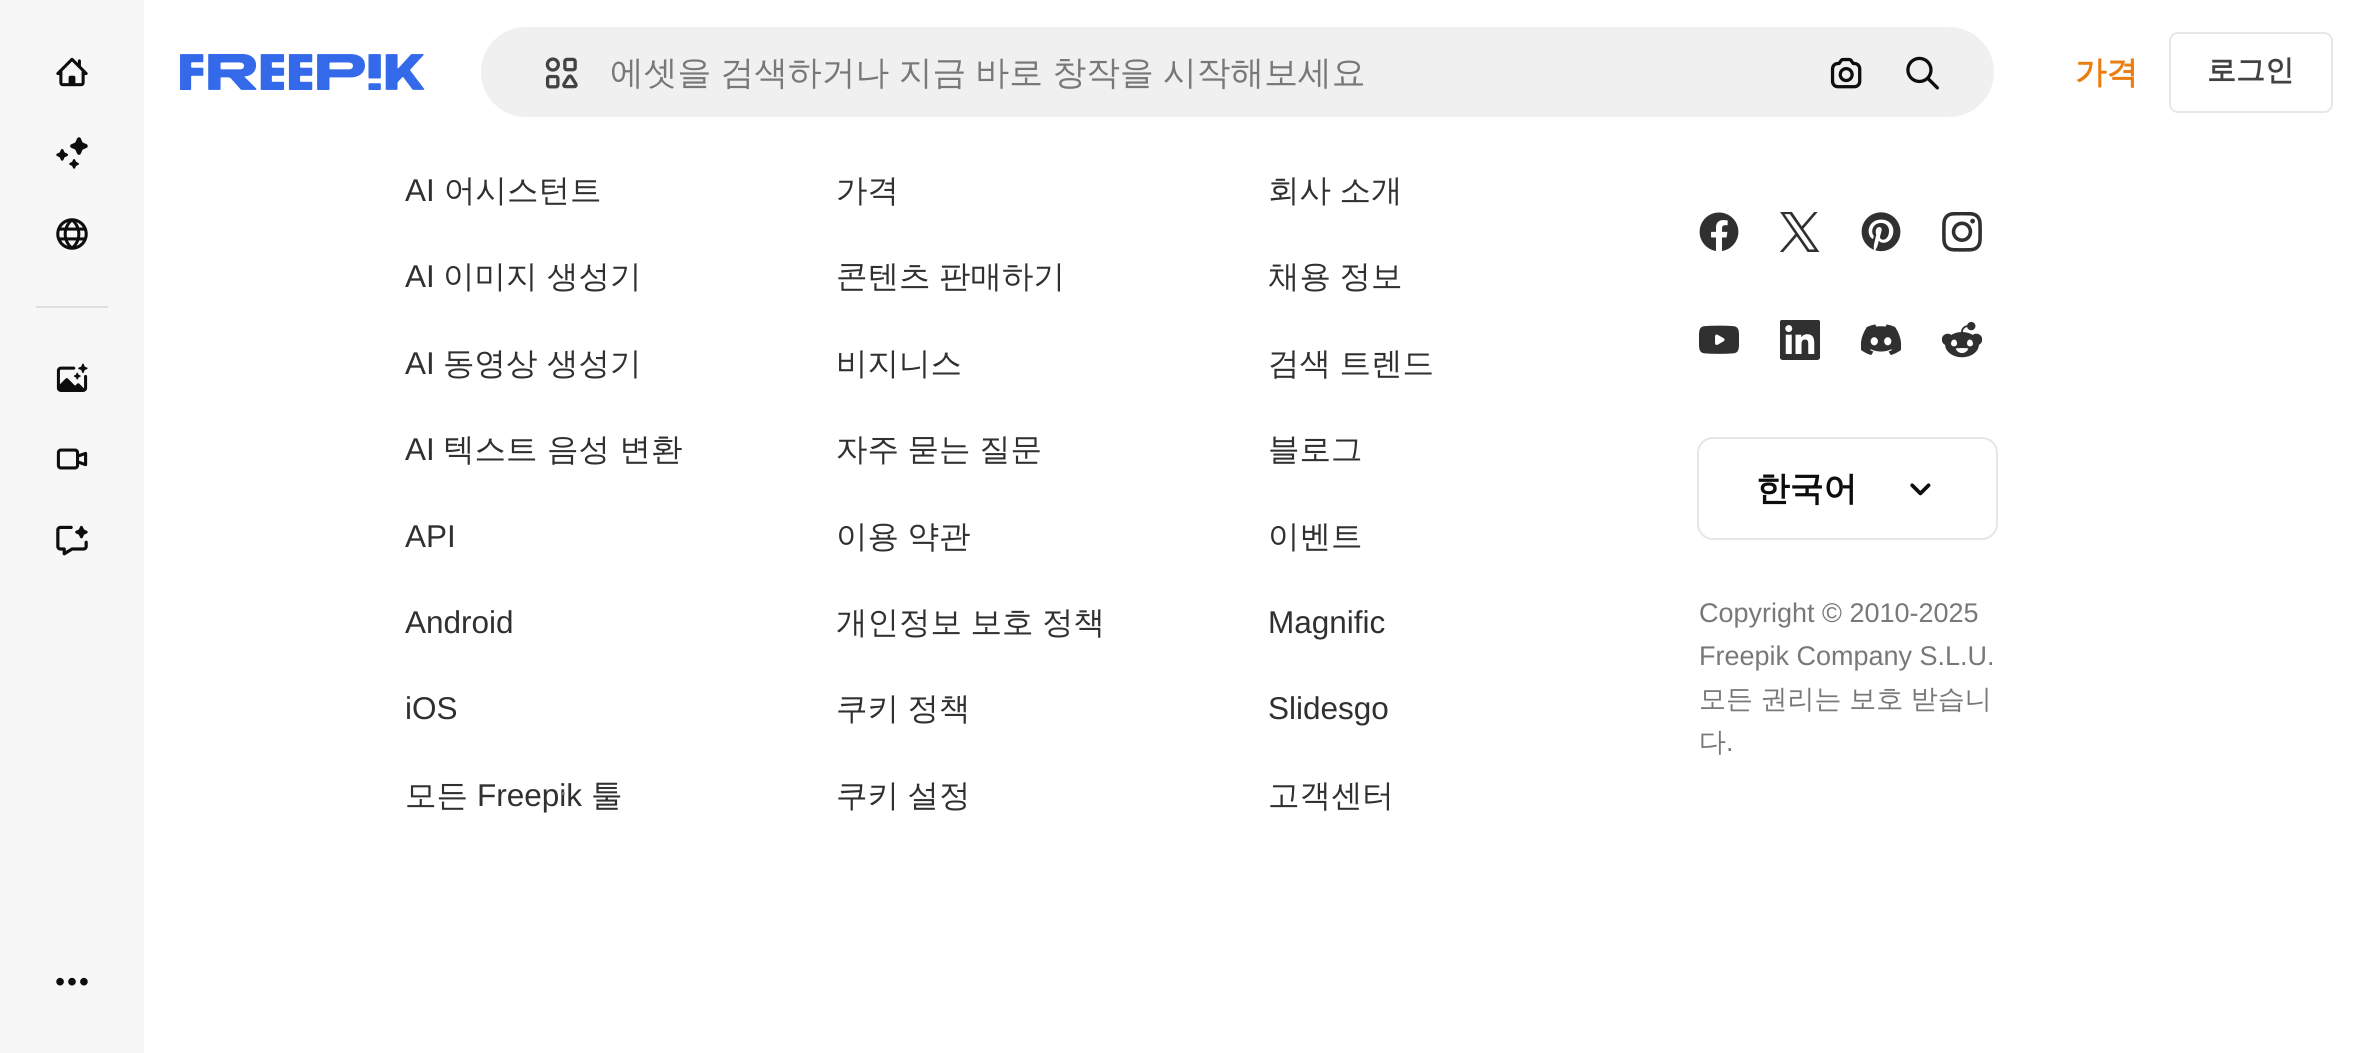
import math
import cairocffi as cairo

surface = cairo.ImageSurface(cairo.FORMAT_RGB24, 2368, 1053)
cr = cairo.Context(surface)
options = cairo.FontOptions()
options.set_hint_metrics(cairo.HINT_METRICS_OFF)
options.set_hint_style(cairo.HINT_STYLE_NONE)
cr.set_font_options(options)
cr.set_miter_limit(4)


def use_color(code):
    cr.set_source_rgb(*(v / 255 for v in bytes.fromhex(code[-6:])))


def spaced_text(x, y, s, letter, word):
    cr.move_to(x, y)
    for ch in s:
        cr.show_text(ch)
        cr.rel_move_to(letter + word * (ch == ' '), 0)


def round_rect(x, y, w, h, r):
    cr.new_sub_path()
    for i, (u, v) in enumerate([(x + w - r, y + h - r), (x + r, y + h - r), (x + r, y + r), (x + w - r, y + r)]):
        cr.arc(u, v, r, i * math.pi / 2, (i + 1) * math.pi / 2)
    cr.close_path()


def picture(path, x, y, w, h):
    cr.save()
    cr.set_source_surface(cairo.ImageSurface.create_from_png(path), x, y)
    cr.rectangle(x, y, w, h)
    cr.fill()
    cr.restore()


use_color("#ffffff")
cr.paint()
use_color("#f7f7f7")
cr.rectangle(0, 0, 144, 1053)
cr.fill()
picture("img1.png", 56, 57, 32, 30)
picture("img2.png", 56, 137, 32, 32)
picture("img3.png", 56, 218, 32, 32)
use_color("#e0e0e0")
cr.rectangle(36, 306, 72, 2)
cr.fill()
picture("img4.png", 56, 363, 32, 29)
picture("img5.png", 56, 448, 32, 22)
picture("img6.png", 56, 525, 32, 31)
picture("img7.png", 56, 977, 32, 9)
picture("img8.png", 180, 54, 245, 36)
use_color("#f0f0f0")
round_rect(480, 26, 1515, 92, 46)
cr.fill_preserve()
use_color("#ffffff")
cr.stroke()
picture("img9.png", 545, 57, 33, 32)
cr.select_font_face("WenQuanYi Zen Hei Medium")
cr.set_font_size(33.75)
use_color("#787878")
spaced_text(610, 84, "에셋을 검색하거나 지금 바로 창작을 시작해보세요", 0, -0.75)
picture("img10.png", 1830, 57, 32, 32)
picture("img11.png", 1906, 56, 33, 34)
cr.select_font_face("WenQuanYi Zen Hei", cairo.FONT_SLANT_NORMAL, cairo.FONT_WEIGHT_BOLD)
cr.set_font_size(31.5)
use_color("#ea7e11")
cr.move_to(2075, 83)
cr.show_text("가격")
round_rect(2170, 33, 162, 79, 8)
use_color("#e7e7e7")
cr.stroke()
cr.set_font_size(29)
use_color("#424242")
cr.move_to(2207, 80)
cr.show_text("로그인")
cr.select_font_face("Liberation Sans")
cr.set_font_size(31.5)
use_color("#303030")
cr.move_to(405, 201)
cr.show_text("AI")
cr.select_font_face("WenQuanYi Zen Hei Medium")
cr.move_to(444, 201)
cr.show_text("어시스턴트")
cr.select_font_face("Liberation Sans")
cr.move_to(405, 287)
cr.show_text("AI")
cr.select_font_face("WenQuanYi Zen Hei Medium")
cr.move_to(443, 287)
cr.show_text("이미지 생성기")
cr.select_font_face("Liberation Sans")
cr.move_to(405, 374)
cr.show_text("AI")
cr.select_font_face("WenQuanYi Zen Hei Medium")
cr.move_to(443, 374)
cr.show_text("동영상 생성기")
cr.select_font_face("Liberation Sans")
cr.move_to(405, 460)
cr.show_text("AI")
cr.select_font_face("WenQuanYi Zen Hei Medium")
cr.move_to(443, 460)
cr.show_text("텍스트 음성 변환")
cr.select_font_face("Liberation Sans")
cr.move_to(405, 547)
cr.show_text("API")
cr.move_to(405, 633)
cr.show_text("Android")
cr.move_to(405, 719)
cr.show_text("iOS")
cr.select_font_face("WenQuanYi Zen Hei Medium")
cr.move_to(405, 806)
cr.show_text("모든")
cr.select_font_face("Liberation Sans")
cr.move_to(477, 806)
cr.show_text("Freepik")
cr.select_font_face("WenQuanYi Zen Hei Medium")
cr.move_to(591, 806)
cr.show_text("툴")
cr.move_to(836, 201)
cr.show_text("가격")
spaced_text(836, 287, "콘텐츠 판매하기", 0, -1)
cr.move_to(836, 374)
cr.show_text("비지니스")
spaced_text(836, 460, "자주 묻는 질문", 0, -1)
spaced_text(836, 547, "이용 약관", 0, -1)
spaced_text(836, 633, "개인정보 보호 정책", 0, -1)
spaced_text(836, 719, "쿠키 정책", 0, -1)
spaced_text(836, 806, "쿠키 설정", 0, -1)
spaced_text(1268, 201, "회사 소개", 0, -1)
spaced_text(1268, 287, "채용 정보", 0, -1)
spaced_text(1268, 374, "검색 트렌드", 0, -1)
cr.move_to(1268, 460)
cr.show_text("블로그")
cr.move_to(1268, 547)
cr.show_text("이벤트")
cr.select_font_face("Liberation Sans")
cr.move_to(1268, 633)
cr.show_text("Magnific")
cr.move_to(1268, 719)
cr.show_text("Slidesgo")
cr.select_font_face("WenQuanYi Zen Hei Medium")
cr.move_to(1268, 806)
cr.show_text("고객센터")
picture("img12.png", 1699, 212, 40, 39)
picture("img13.png", 1780, 212, 40, 40)
picture("img14.png", 1861, 212, 40, 40)
picture("img15.png", 1942, 212, 40, 40)
picture("img16.png", 1699, 325, 40, 29)
picture("img17.png", 1780, 320, 40, 40)
picture("img18.png", 1861, 324, 40, 31)
picture("img19.png", 1942, 321, 40, 37)
round_rect(1698, 438, 299, 101, 15)
use_color("#e6e6e6")
cr.stroke()
cr.select_font_face("WenQuanYi Zen Hei", cairo.FONT_SLANT_NORMAL, cairo.FONT_WEIGHT_BOLD)
cr.set_font_size(33.75)
use_color("#0d0d0d")
cr.move_to(1756, 500)
cr.show_text("한국어")
picture("img20.png", 1910, 483, 21, 13)
cr.select_font_face("Liberation Sans")
cr.set_font_size(27)
use_color("#787878")
cr.move_to(1699, 622)
cr.show_text("Copyright © 2010-2025")
cr.move_to(1699, 665)
cr.show_text("Freepik Company S.L.U.")
cr.select_font_face("WenQuanYi Zen Hei Medium")
spaced_text(1699, 708, "모든 권리는 보호 받습니", 0, -0.5)
cr.move_to(1699, 751)
cr.show_text("다")
cr.select_font_face("Liberation Sans")
cr.move_to(1726, 751)
cr.show_text(".")
cr.set_font_size(29)
use_color("#727272")
cr.move_to(559, 795)
cr.show_text(".")
surface.write_to_png("result.png")
